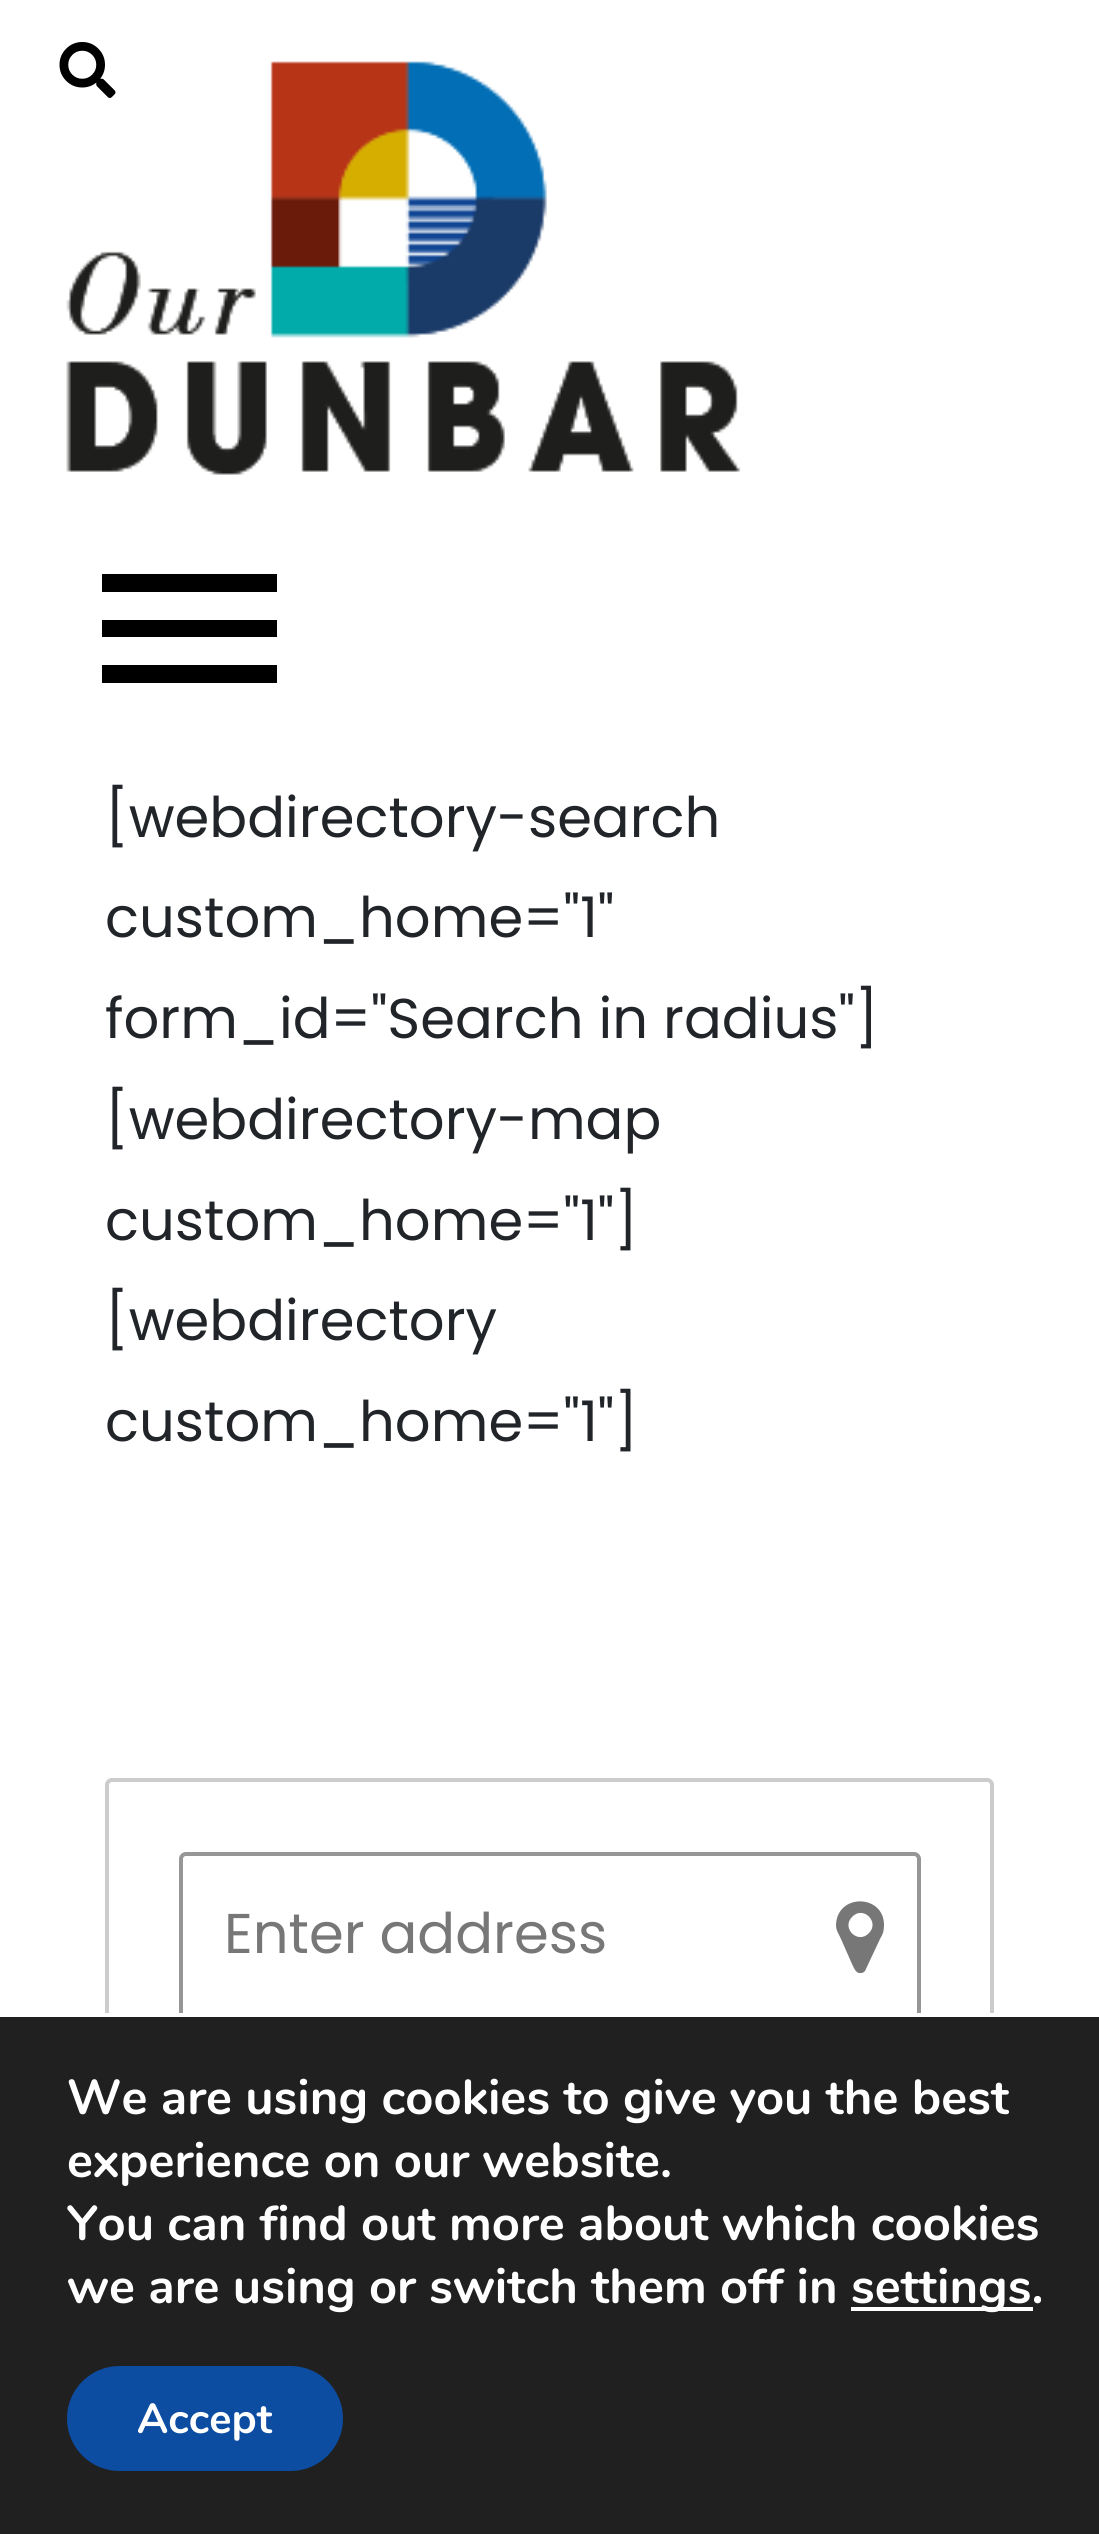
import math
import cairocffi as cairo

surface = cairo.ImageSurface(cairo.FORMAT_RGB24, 1099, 2534)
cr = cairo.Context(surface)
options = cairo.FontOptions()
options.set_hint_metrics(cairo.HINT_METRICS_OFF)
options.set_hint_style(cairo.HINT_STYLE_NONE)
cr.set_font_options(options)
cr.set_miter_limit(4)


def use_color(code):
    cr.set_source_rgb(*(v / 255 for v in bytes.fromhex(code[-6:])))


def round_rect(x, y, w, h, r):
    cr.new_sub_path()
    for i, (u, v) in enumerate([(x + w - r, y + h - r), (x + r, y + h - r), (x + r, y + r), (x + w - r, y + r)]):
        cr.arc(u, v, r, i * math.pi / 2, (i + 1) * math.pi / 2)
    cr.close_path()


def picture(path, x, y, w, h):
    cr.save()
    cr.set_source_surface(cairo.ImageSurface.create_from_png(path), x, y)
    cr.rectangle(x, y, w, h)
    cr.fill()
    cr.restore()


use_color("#ffffff")
cr.paint()
picture("img2.png", 66, 61, 675, 414)
picture("img1.png", 59, 42, 57, 56)
use_color("#000000")
cr.rectangle(102, 574, 175, 18)
cr.fill()
cr.rectangle(102, 620, 175, 17)
cr.fill()
cr.rectangle(102, 665, 175, 18)
cr.fill()
cr.select_font_face("Poppins")
cr.set_font_size(56)
use_color("#212529")
cr.move_to(105, 837)
cr.show_text("[webdirectory-search")
cr.move_to(105, 937)
cr.show_text("custom_home=\"1\"")
cr.move_to(105, 1038)
cr.show_text("form_id=\"Search in radius\"]")
cr.move_to(105, 1139)
cr.show_text("[webdirectory-map")
cr.move_to(105, 1240)
cr.show_text("custom_home=\"1\"]")
cr.move_to(105, 1340)
cr.show_text("[webdirectory")
cr.move_to(105, 1441)
cr.show_text("custom_home=\"1\"]")
round_rect(107, 1780, 885, 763, 5)
use_color("#cccccc")
cr.set_line_width(4)
cr.stroke()
round_rect(181, 1854, 738, 164, 5)
use_color("#969696")
cr.stroke()
use_color("#777777")
cr.move_to(224, 1953)
cr.show_text("Enter address")
cr.new_path()
cr.move_to(869, 1933)
cr.curve_to(880, 1922, 863, 1905, 852, 1917)
cr.curve_to(841, 1928, 858, 1945, 869, 1933)
cr.close_path()
cr.move_to(884, 1925)
cr.curve_to(884, 1931, 883, 1934, 880, 1939)
cr.line_to(865, 1971)
cr.curve_to(864, 1972, 863, 1973, 861, 1973)
cr.curve_to(856, 1974, 854, 1968, 852, 1964)
cr.line_to(841, 1939)
cr.curve_to(839, 1934, 836, 1931, 836, 1925)
cr.curve_to(837, 1893, 884, 1894, 884, 1925)
cr.close_path()
cr.fill()
use_color("#202020")
cr.rectangle(0, 2017, 1099, 517)
cr.fill()
use_color("#ffffff")
cr.rectangle(105, 2013, 889, 4)
cr.fill()
cr.select_font_face("Nunito", cairo.FONT_SLANT_NORMAL, cairo.FONT_WEIGHT_BOLD)
cr.set_font_size(49)
cr.move_to(67, 2114)
cr.show_text("We are using cookies to give you the best")
cr.move_to(67, 2177)
cr.show_text("experience on our website.")
cr.move_to(67, 2240)
cr.show_text("You can find out more about which cookies")
cr.move_to(67, 2303)
cr.show_text("we are using or switch them off in")
cr.rectangle(851, 2307, 182, 4)
cr.fill()
cr.move_to(851, 2303)
cr.show_text("settings.")
use_color("#0c4da2")
round_rect(67, 2366, 276, 105, 52.5)
cr.fill()
cr.set_font_size(42)
use_color("#ffffff")
cr.move_to(137, 2433)
cr.show_text("Accept")
surface.write_to_png("result.png")
